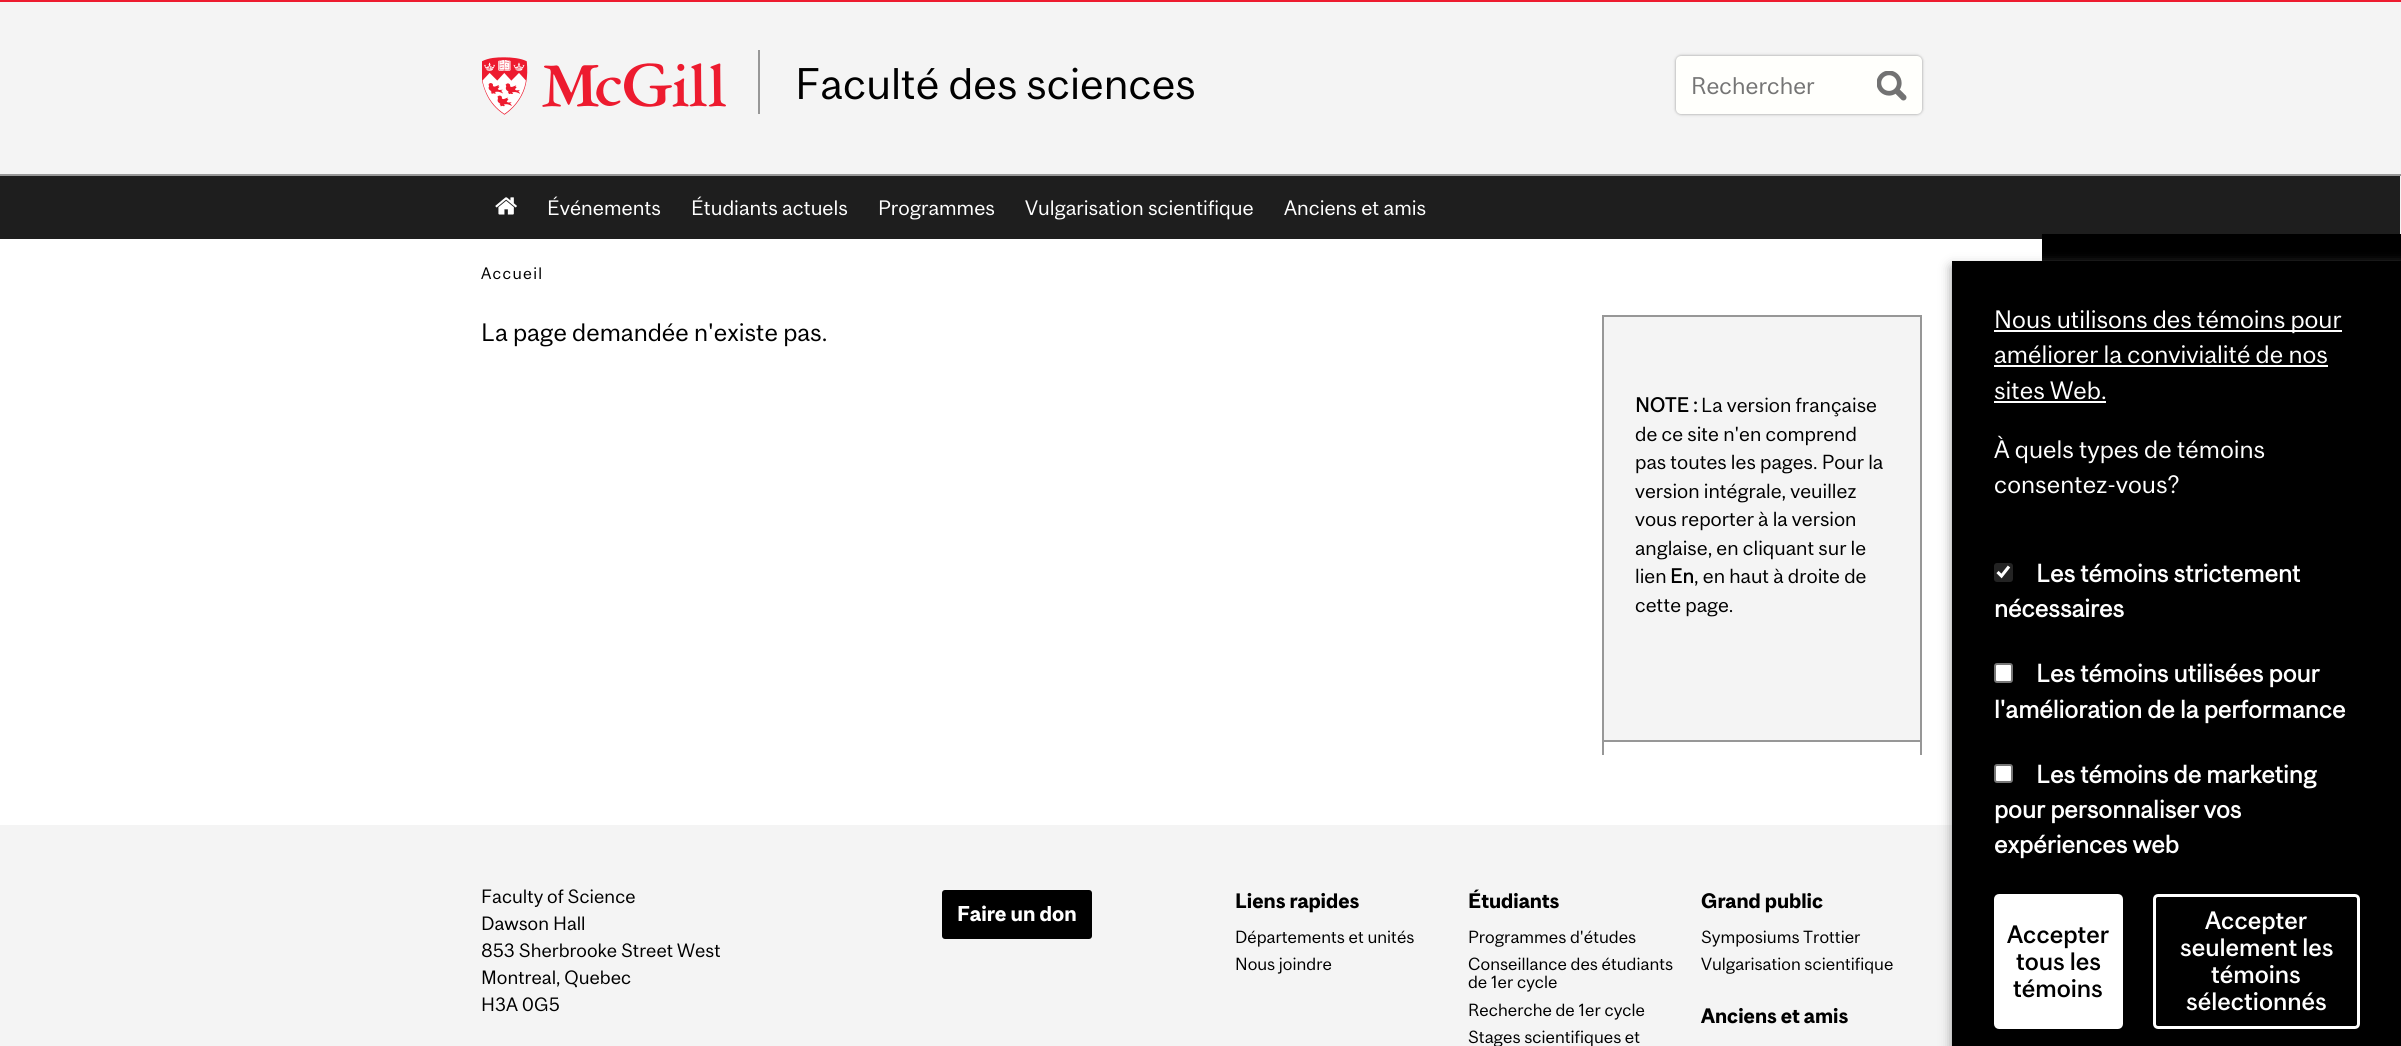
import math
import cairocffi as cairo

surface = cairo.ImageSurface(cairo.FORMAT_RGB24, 2401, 1046)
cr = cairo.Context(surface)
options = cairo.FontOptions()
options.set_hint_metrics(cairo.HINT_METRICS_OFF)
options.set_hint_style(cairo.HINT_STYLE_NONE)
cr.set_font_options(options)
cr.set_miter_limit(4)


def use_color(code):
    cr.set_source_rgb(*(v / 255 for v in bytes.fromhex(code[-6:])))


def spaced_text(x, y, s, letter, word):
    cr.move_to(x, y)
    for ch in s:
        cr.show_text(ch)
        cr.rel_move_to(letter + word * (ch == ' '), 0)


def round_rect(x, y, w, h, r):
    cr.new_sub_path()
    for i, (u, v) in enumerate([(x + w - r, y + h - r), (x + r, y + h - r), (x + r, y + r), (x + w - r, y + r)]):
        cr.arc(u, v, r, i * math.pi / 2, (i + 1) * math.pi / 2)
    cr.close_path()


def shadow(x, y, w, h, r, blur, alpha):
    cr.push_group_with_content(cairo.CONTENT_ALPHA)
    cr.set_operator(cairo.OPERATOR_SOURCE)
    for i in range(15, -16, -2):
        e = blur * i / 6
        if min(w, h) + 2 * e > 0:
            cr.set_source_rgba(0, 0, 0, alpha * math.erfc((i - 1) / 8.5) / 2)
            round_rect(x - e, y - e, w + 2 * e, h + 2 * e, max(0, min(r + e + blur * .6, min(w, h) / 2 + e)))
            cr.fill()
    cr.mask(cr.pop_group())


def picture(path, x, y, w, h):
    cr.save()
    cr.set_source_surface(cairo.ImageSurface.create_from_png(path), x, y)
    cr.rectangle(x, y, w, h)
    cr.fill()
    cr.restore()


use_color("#ffffff")
cr.paint()
use_color("#f4f4f4")
cr.rectangle(0, 2, 2401, 172)
cr.fill()
use_color("#ed1b2f")
cr.rectangle(0, 0, 2401, 2)
cr.fill()
use_color("#979797")
cr.rectangle(0, 174, 2401, 2)
cr.fill()
picture("img1.png", 482, 57, 244, 58)
cr.rectangle(758, 50, 2, 64)
cr.fill()
cr.select_font_face("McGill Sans")
cr.set_font_size(41.25)
use_color("#000000")
cr.move_to(795, 99)
cr.show_text("Faculté des sciences")
use_color("#000000")
shadow(1676, 56, 246, 58, 5, 1.5, 0.4)
use_color("#fffffc")
round_rect(1676, 56, 246, 58, 5)
cr.fill()
cr.set_font_size(22.5)
use_color("#757575")
cr.move_to(1691, 94)
cr.show_text("Rechercher")
picture("img2.png", 1877, 71, 30, 30)
use_color("#1e1e1e")
cr.rectangle(0, 176, 2400, 63)
cr.fill()
use_color("#f4f4f4")
cr.rectangle(2400, 176, 1, 63)
cr.fill()
picture("img3.png", 495, 197, 22, 18)
cr.set_font_size(19.5)
use_color("#ffffff")
cr.move_to(547, 215)
cr.show_text("Événements")
cr.move_to(691, 215)
cr.show_text("Étudiants actuels")
cr.move_to(878, 215)
cr.show_text("Programmes")
cr.move_to(1025, 215)
cr.show_text("Vulgarisation scientifique")
cr.move_to(1284, 215)
cr.show_text("Anciens et amis")
use_color("#000000")
cr.rectangle(2042, 234, 359, 27)
cr.fill()
cr.set_font_size(15.5)
spaced_text(481, 279, "Accueil", 1.25, 0)
cr.set_font_size(23.5)
cr.move_to(481, 341)
cr.show_text("La page demandée n'existe pas.")
use_color("#979797")
cr.rectangle(1602, 315, 320, 2)
cr.fill()
cr.rectangle(1920, 315, 2, 440)
cr.fill()
cr.rectangle(1602, 315, 2, 440)
cr.fill()
use_color("#f4f4f4")
cr.rectangle(1604, 317, 316, 423)
cr.fill()
use_color("#979797")
cr.rectangle(1604, 740, 316, 2)
cr.fill()
cr.select_font_face("McGill Sans", cairo.FONT_SLANT_NORMAL, cairo.FONT_WEIGHT_BOLD)
cr.set_font_size(19)
use_color("#000000")
cr.move_to(1635, 412)
cr.show_text("NOTE :")
cr.select_font_face("McGill Sans")
cr.move_to(1701, 412)
cr.show_text("La version française")
cr.move_to(1635, 441)
cr.show_text("de ce site n'en comprend")
cr.move_to(1635, 469)
cr.show_text("pas toutes les pages. Pour la")
cr.move_to(1635, 498)
cr.show_text("version intégrale, veuillez")
cr.move_to(1635, 526)
cr.show_text("vous reporter à la version")
cr.move_to(1635, 555)
cr.show_text("anglaise, en cliquant sur le")
cr.move_to(1635, 583)
cr.show_text("lien")
cr.select_font_face("McGill Sans", cairo.FONT_SLANT_NORMAL, cairo.FONT_WEIGHT_BOLD)
cr.move_to(1670, 583)
cr.show_text("En")
cr.select_font_face("McGill Sans")
cr.move_to(1694, 583)
cr.show_text(", en haut à droite de")
cr.move_to(1635, 612)
cr.show_text("cette page.")
use_color("#f4f4f4")
cr.rectangle(0, 825, 1952, 221)
cr.fill()
use_color("#979799")
shadow(1952, 267, 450, 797, 0, 6, 1)
use_color("#000000")
cr.rectangle(1952, 261, 449, 785)
cr.fill()
use_color("#ffffff")
cr.rectangle(1994, 330, 348, 2)
cr.fill()
cr.set_font_size(23.5)
cr.move_to(1994, 328)
cr.show_text("Nous utilisons des témoins pour")
cr.move_to(1994, 363)
cr.show_text("améliorer la convivialité de nos")
cr.rectangle(1994, 365, 334, 2)
cr.fill()
cr.move_to(1994, 399)
cr.show_text("sites Web.")
cr.rectangle(1994, 401, 112, 2)
cr.fill()
cr.move_to(1994, 458)
cr.show_text("À quels types de témoins")
cr.move_to(1994, 493)
cr.show_text("consentez-vous?")
use_color("#232323")
round_rect(1994, 563, 19, 19, 3)
cr.fill()
cr.new_path()
cr.move_to(1997.5, 572)
cr.line_to(2001.5, 576)
cr.line_to(2009, 566.5)
use_color("#ffffff")
cr.set_line_width(3.1)
cr.stroke()
cr.select_font_face("McGill Sans", cairo.FONT_SLANT_NORMAL, cairo.FONT_WEIGHT_BOLD)
cr.move_to(2036, 582)
cr.show_text("Les témoins strictement")
cr.move_to(1994, 617)
cr.show_text("nécessaires")
round_rect(1995, 664, 17, 18, 2)
cr.fill_preserve()
use_color("#767676")
cr.set_line_width(2)
cr.stroke()
use_color("#ffffff")
cr.move_to(2036, 682)
cr.show_text("Les témoins utilisées pour")
cr.move_to(1994, 718)
cr.show_text("l'amélioration de la performance")
round_rect(1995, 765, 17, 17, 2)
cr.fill_preserve()
use_color("#767676")
cr.stroke()
use_color("#ffffff")
cr.move_to(2036, 783)
cr.show_text("Les témoins de marketing")
cr.move_to(1994, 818)
cr.show_text("pour personnaliser vos")
cr.move_to(1994, 853)
cr.show_text("expériences web")
round_rect(1995.5, 895.5, 126, 132, 3.5)
cr.fill_preserve()
cr.set_line_width(3)
cr.stroke()
cr.select_font_face("McGill Sans Medium")
use_color("#000000")
cr.move_to(2007, 943)
cr.show_text("Accepter")
cr.move_to(2016, 970)
cr.show_text("tous les")
cr.move_to(2013, 997)
cr.show_text("témoins")
round_rect(2154.5, 895.5, 204, 132, 3.5)
use_color("#ffffff")
cr.stroke()
cr.move_to(2205, 929)
cr.show_text("Accepter")
cr.move_to(2180, 956)
cr.show_text("seulement les")
cr.move_to(2211, 983)
cr.show_text("témoins")
cr.move_to(2186, 1010)
cr.show_text("sélectionnés")
cr.select_font_face("McGill Sans")
cr.set_font_size(18)
use_color("#000000")
cr.move_to(481, 903)
cr.show_text("Faculty of Science")
cr.move_to(481, 930)
cr.show_text("Dawson Hall")
cr.move_to(481, 957)
cr.show_text("853 Sherbrooke Street West")
cr.move_to(481, 984)
cr.show_text("Montreal, Quebec")
cr.move_to(481, 1011)
cr.show_text("H3A 0G5")
round_rect(942, 890, 150, 49, 3)
cr.fill()
cr.select_font_face("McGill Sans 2", cairo.FONT_SLANT_NORMAL, cairo.FONT_WEIGHT_BOLD)
cr.set_font_size(20)
use_color("#ffffff")
cr.move_to(957, 921)
cr.show_text("Faire un don")
cr.set_font_size(19.5)
use_color("#000000")
cr.move_to(1235, 908)
cr.show_text("Liens rapides")
cr.select_font_face("McGill Sans")
cr.set_font_size(16.4)
cr.move_to(1235, 943)
cr.show_text("Départements et unités")
cr.move_to(1235, 970)
cr.show_text("Nous joindre")
cr.select_font_face("McGill Sans 2", cairo.FONT_SLANT_NORMAL, cairo.FONT_WEIGHT_BOLD)
cr.set_font_size(19.5)
cr.move_to(1468, 908)
cr.show_text("Étudiants")
cr.select_font_face("McGill Sans")
cr.set_font_size(16.4)
cr.move_to(1468, 943)
cr.show_text("Programmes d'études")
cr.move_to(1468, 970)
cr.show_text("Conseillance des étudiants")
cr.move_to(1468, 988)
cr.show_text("de 1er cycle")
cr.move_to(1468, 1016)
cr.show_text("Recherche de 1er cycle")
cr.move_to(1468, 1043)
cr.show_text("Stages scientifiques et")
cr.select_font_face("McGill Sans 2", cairo.FONT_SLANT_NORMAL, cairo.FONT_WEIGHT_BOLD)
cr.set_font_size(19.5)
cr.move_to(1701, 908)
cr.show_text("Grand public")
cr.select_font_face("McGill Sans")
cr.set_font_size(16.4)
cr.move_to(1701, 943)
cr.show_text("Symposiums Trottier")
cr.move_to(1701, 970)
cr.show_text("Vulgarisation scientifique")
cr.select_font_face("McGill Sans 2", cairo.FONT_SLANT_NORMAL, cairo.FONT_WEIGHT_BOLD)
cr.set_font_size(19.5)
cr.move_to(1701, 1023)
cr.show_text("Anciens et amis")
surface.write_to_png("result.png")
